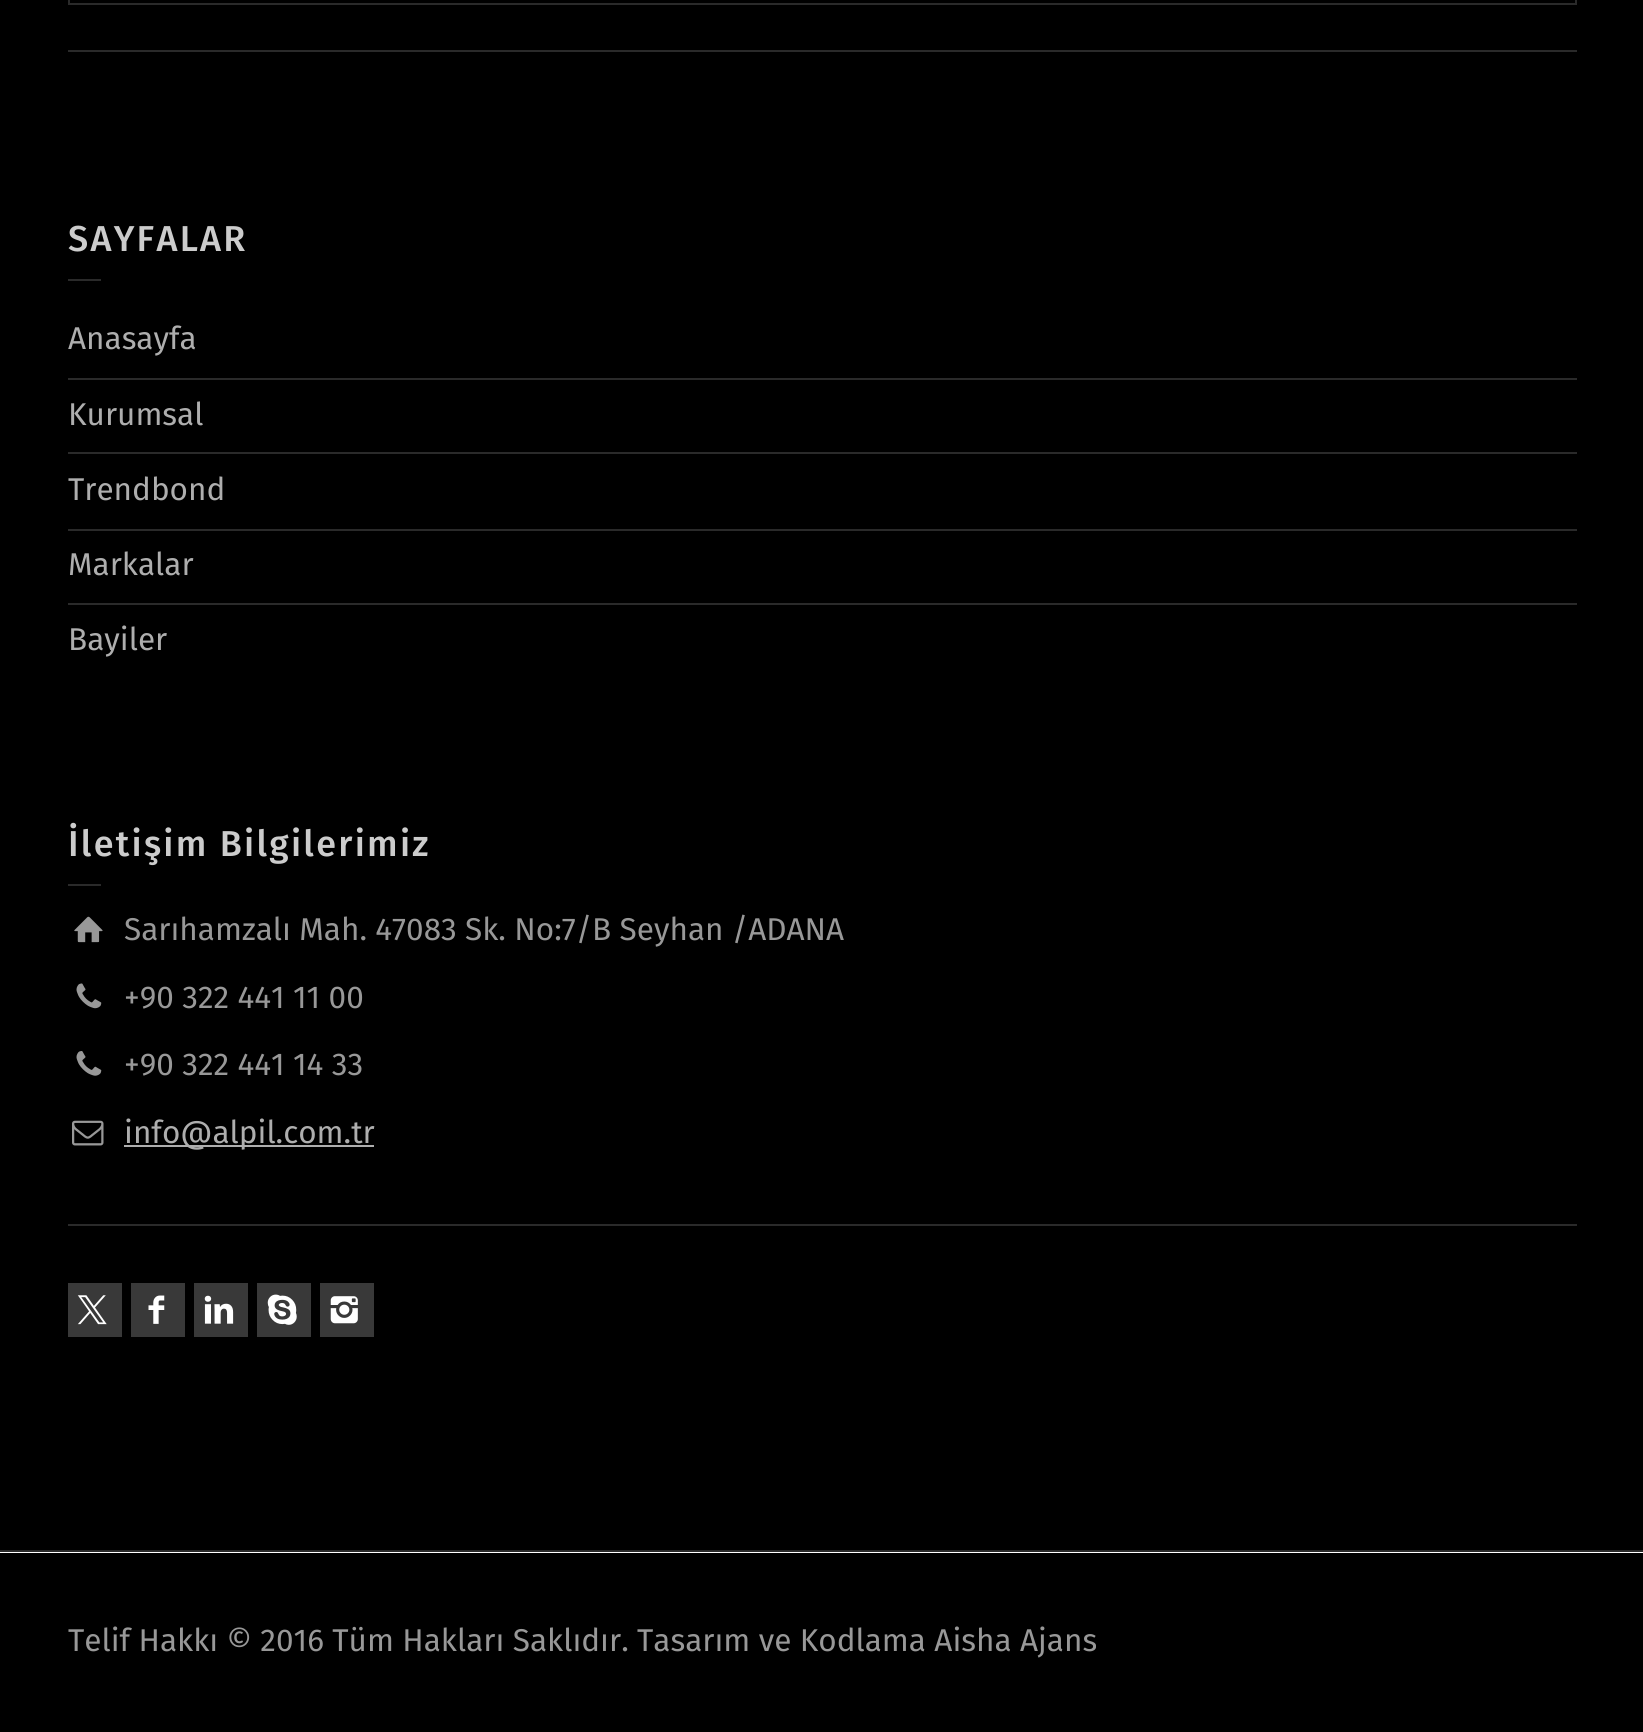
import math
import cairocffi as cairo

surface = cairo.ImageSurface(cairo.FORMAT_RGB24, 1643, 1732)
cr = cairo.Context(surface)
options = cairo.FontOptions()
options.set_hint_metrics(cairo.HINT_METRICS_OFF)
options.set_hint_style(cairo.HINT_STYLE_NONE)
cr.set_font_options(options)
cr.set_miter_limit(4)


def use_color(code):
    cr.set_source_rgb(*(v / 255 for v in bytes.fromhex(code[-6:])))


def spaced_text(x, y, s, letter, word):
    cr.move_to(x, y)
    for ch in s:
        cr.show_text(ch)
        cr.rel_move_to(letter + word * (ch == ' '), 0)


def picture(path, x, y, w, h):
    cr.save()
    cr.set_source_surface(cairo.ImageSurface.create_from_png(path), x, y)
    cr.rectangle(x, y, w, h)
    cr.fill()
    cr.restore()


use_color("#ffffff")
cr.paint()
use_color("#000000")
cr.rectangle(0, 0, 1643, 1550)
cr.fill()
cr.rectangle(69, -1, 1507, 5)
use_color("#2a2a2a")
cr.stroke()
cr.rectangle(68, 50, 1509, 2)
cr.fill()
cr.select_font_face("Fira Sans Medium")
cr.set_font_size(36)
use_color("#cccccc")
spaced_text(68, 251, "SAYFALAR", 2.25, 0)
use_color("#2a2a2a")
cr.rectangle(68, 279, 33, 2)
cr.fill()
cr.rectangle(68, 378, 1509, 2)
cr.fill()
cr.select_font_face("Fira Sans")
cr.set_font_size(31.5)
use_color("#aeaeae")
cr.move_to(68, 349)
cr.show_text("Anasayfa")
use_color("#2a2a2a")
cr.rectangle(68, 452, 1509, 2)
cr.fill()
use_color("#aeaeae")
cr.move_to(68, 425)
cr.show_text("Kurumsal")
use_color("#2a2a2a")
cr.rectangle(68, 529, 1509, 2)
cr.fill()
use_color("#aeaeae")
cr.move_to(68, 500)
cr.show_text("Trendbond")
use_color("#2a2a2a")
cr.rectangle(68, 603, 1509, 2)
cr.fill()
use_color("#aeaeae")
cr.move_to(68, 575)
cr.show_text("Markalar")
cr.move_to(68, 650)
cr.show_text("Bayiler")
cr.select_font_face("Fira Sans Medium")
cr.set_font_size(36)
use_color("#cccccc")
spaced_text(68, 856, "İletişim Bilgilerimiz", 2.25, 0)
use_color("#2a2a2a")
cr.rectangle(68, 884, 33, 2)
cr.fill()
picture("img1.png", 74, 916, 29, 27)
cr.select_font_face("Fira Sans")
cr.set_font_size(31.5)
use_color("#989898")
cr.move_to(124, 940)
cr.show_text("Sarıhamzalı Mah. 47083 Sk. No:7/B Seyhan /ADANA")
picture("img2.png", 76, 983, 26, 26)
cr.move_to(124, 1008)
cr.show_text("+90 322 441 11 00")
picture("img3.png", 76, 1051, 26, 25)
cr.move_to(124, 1075)
cr.show_text("+90 322 441 14 33")
picture("img4.png", 72, 1120, 32, 26)
use_color("#aeaeae")
cr.rectangle(124, 1145, 250, 2)
cr.fill()
cr.move_to(124, 1143)
cr.show_text("info@alpil.com.tr")
use_color("#2a2a2a")
cr.rectangle(68, 1224, 1509, 2)
cr.fill()
use_color("#393939")
cr.rectangle(68, 1283, 54, 54)
cr.fill()
picture("img5.png", 77, 1295, 30, 30)
cr.rectangle(131, 1283, 54, 54)
cr.fill()
picture("img6.png", 148, 1295, 17, 29)
cr.rectangle(194, 1283, 54, 54)
cr.fill()
picture("img7.png", 204, 1295, 30, 29)
cr.rectangle(257, 1283, 54, 54)
cr.fill()
picture("img8.png", 267, 1294, 30, 31)
cr.rectangle(320, 1283, 54, 54)
cr.fill()
picture("img9.png", 330, 1296, 28, 28)
use_color("#000000")
cr.rectangle(0, 1553, 1643, 179)
cr.fill()
use_color("#2a2a2a")
cr.rectangle(0, 1550, 1643, 2)
cr.fill()
use_color("#989898")
cr.move_to(68, 1651)
cr.show_text("Telif Hakkı © 2016 Tüm Hakları Saklıdır. Tasarım ve Kodlama Aisha Ajans")
surface.write_to_png("result.png")
